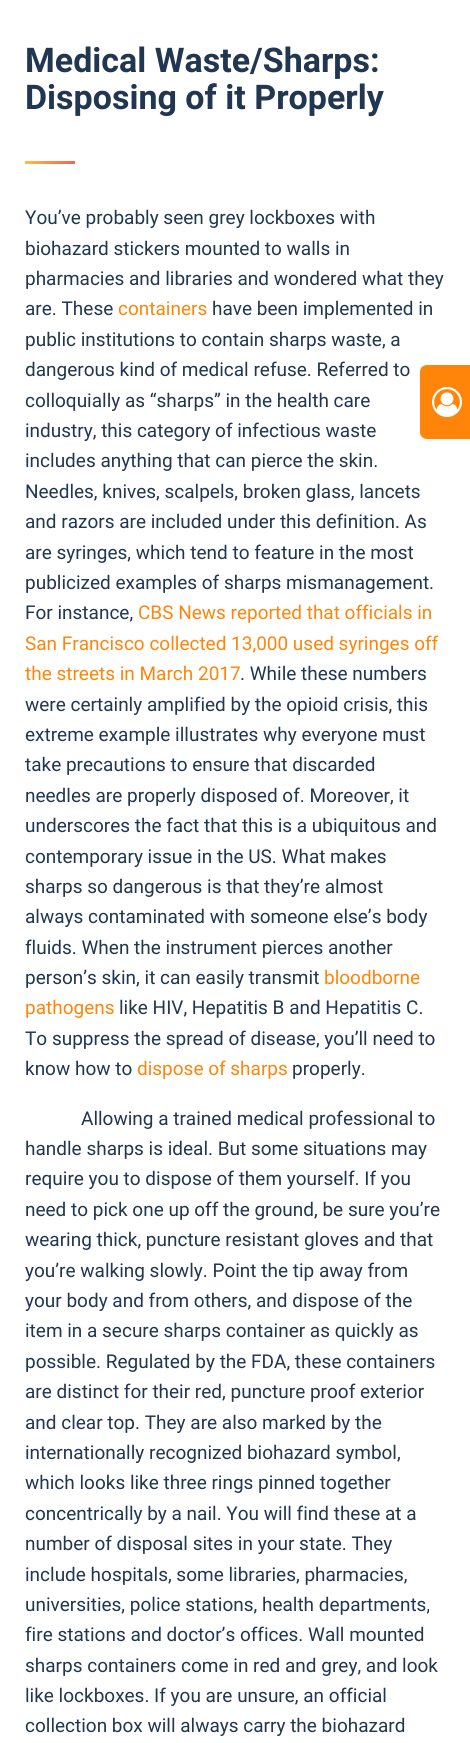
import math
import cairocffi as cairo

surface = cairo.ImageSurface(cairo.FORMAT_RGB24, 470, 1743)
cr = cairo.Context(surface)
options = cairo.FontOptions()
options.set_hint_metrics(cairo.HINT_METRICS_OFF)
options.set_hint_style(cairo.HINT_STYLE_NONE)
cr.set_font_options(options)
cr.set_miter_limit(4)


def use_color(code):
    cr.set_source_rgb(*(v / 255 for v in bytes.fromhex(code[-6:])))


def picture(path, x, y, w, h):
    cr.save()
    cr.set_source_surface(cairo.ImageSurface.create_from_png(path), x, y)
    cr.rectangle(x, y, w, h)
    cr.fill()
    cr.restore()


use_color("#ffffff")
cr.paint()
cr.select_font_face("Roboto", cairo.FONT_SLANT_NORMAL, cairo.FONT_WEIGHT_BOLD)
cr.set_font_size(34)
use_color("#213650")
cr.move_to(25, 72)
cr.show_text("Medical Waste/Sharps:")
cr.move_to(25, 109)
cr.show_text("Disposing of it Properly")
gradient = cairo.LinearGradient(25, 163, 75, 163)
gradient.add_color_stop_rgba(0, 1, 0.737, 0.247, 1)
gradient.add_color_stop_rgba(1, 0.949, 0.396, 0.329, 1)
cr.set_source(gradient)
cr.rectangle(25, 161, 50, 3)
cr.fill()
cr.select_font_face("Roboto")
cr.set_font_size(19)
use_color("#213650")
cr.move_to(25, 224)
cr.show_text("You’ve probably seen grey lockboxes with")
cr.move_to(25, 255)
cr.show_text("biohazard stickers mounted to walls in")
cr.move_to(25, 285)
cr.show_text("pharmacies and libraries and wondered what they")
cr.move_to(25, 315)
cr.show_text("are. These")
use_color("#ff850a")
cr.move_to(118, 315)
cr.show_text("containers")
use_color("#213650")
cr.move_to(212, 315)
cr.show_text("have been implemented in")
cr.move_to(25, 346)
cr.show_text("public institutions to contain sharps waste, a")
cr.move_to(25, 376)
cr.show_text("dangerous kind of medical refuse. Referred to")
cr.move_to(25, 407)
cr.show_text("colloquially as “sharps” in the health care")
cr.move_to(25, 437)
cr.show_text("industry, this category of infectious waste")
cr.move_to(25, 467)
cr.show_text("includes anything that can pierce the skin.")
cr.move_to(25, 498)
cr.show_text("Needles, knives, scalpels, broken glass, lancets")
cr.move_to(25, 528)
cr.show_text("and razors are included under this definition. As")
cr.move_to(25, 559)
cr.show_text("are syringes, which tend to feature in the most")
cr.move_to(25, 589)
cr.show_text("publicized examples of sharps mismanagement.")
cr.move_to(25, 619)
cr.show_text("For instance,")
use_color("#ff850a")
cr.move_to(138, 619)
cr.show_text("CBS News reported that officials in")
cr.move_to(25, 650)
cr.show_text("San Francisco collected 13,000 used syringes off")
cr.move_to(25, 680)
cr.show_text("the streets in March 2017")
use_color("#213650")
cr.move_to(240, 680)
cr.show_text(". While these numbers")
cr.move_to(25, 711)
cr.show_text("were certainly amplified by the opioid crisis, this")
cr.move_to(25, 741)
cr.show_text("extreme example illustrates why everyone must")
cr.move_to(25, 771)
cr.show_text("take precautions to ensure that discarded")
cr.move_to(25, 802)
cr.show_text("needles are properly disposed of. Moreover, it")
cr.move_to(25, 832)
cr.show_text("underscores the fact that this is a ubiquitous and")
cr.move_to(25, 863)
cr.show_text("contemporary issue in the US. What makes")
cr.move_to(25, 893)
cr.show_text("sharps so dangerous is that they’re almost")
cr.move_to(25, 923)
cr.show_text("always contaminated with someone else’s body")
cr.move_to(25, 954)
cr.show_text("fluids. When the instrument pierces another")
cr.move_to(25, 984)
cr.show_text("person’s skin, it can easily transmit")
use_color("#ff850a")
cr.move_to(324, 984)
cr.show_text("bloodborne")
cr.move_to(25, 1014)
cr.show_text("pathogens")
use_color("#213650")
cr.move_to(119, 1014)
cr.show_text("like HIV, Hepatitis B and Hepatitis C.")
cr.move_to(25, 1045)
cr.show_text("To suppress the spread of disease, you’ll need to")
cr.move_to(25, 1075)
cr.show_text("know how to")
use_color("#ff850a")
cr.move_to(137, 1075)
cr.show_text("dispose of sharps")
use_color("#213650")
cr.move_to(292, 1075)
cr.show_text("properly.")
cr.move_to(81, 1125)
cr.show_text("Allowing a trained medical professional to")
cr.move_to(25, 1155)
cr.show_text("handle sharps is ideal. But some situations may")
cr.move_to(25, 1185)
cr.show_text("require you to dispose of them yourself. If you")
cr.move_to(25, 1216)
cr.show_text("need to pick one up off the ground, be sure you’re")
cr.move_to(25, 1246)
cr.show_text("wearing thick, puncture resistant gloves and that")
cr.move_to(25, 1277)
cr.show_text("you’re walking slowly. Point the tip away from")
cr.move_to(25, 1307)
cr.show_text("your body and from others, and dispose of the")
cr.move_to(25, 1337)
cr.show_text("item in a secure sharps container as quickly as")
cr.move_to(25, 1368)
cr.show_text("possible. Regulated by the FDA, these containers")
cr.move_to(25, 1398)
cr.show_text("are distinct for their red, puncture proof exterior")
cr.move_to(25, 1429)
cr.show_text("and clear top. They are also marked by the")
cr.move_to(25, 1459)
cr.show_text("internationally recognized biohazard symbol,")
cr.move_to(25, 1489)
cr.show_text("which looks like three rings pinned together")
cr.move_to(25, 1520)
cr.show_text("concentrically by a nail. You will find these at a")
cr.move_to(25, 1550)
cr.show_text("number of disposal sites in your state. They")
cr.move_to(25, 1581)
cr.show_text("include hospitals, some libraries, pharmacies,")
cr.move_to(25, 1611)
cr.show_text("universities, police stations, health departments,")
cr.move_to(25, 1641)
cr.show_text("fire stations and doctor’s offices. Wall mounted")
cr.move_to(25, 1672)
cr.show_text("sharps containers come in red and grey, and look")
cr.move_to(25, 1702)
cr.show_text("like lockboxes. If you are unsure, an official")
cr.move_to(25, 1732)
cr.show_text("collection box will always carry the biohazard")
use_color("#ff850a")
cr.new_path()
cr.move_to(470, 365)
cr.line_to(470, 439)
cr.line_to(427, 439)
cr.curve_to(423, 439, 420, 436, 420, 432)
cr.line_to(420, 372)
cr.curve_to(420, 368, 423, 365, 427, 365)
cr.close_path()
cr.fill()
picture("img1.png", 432, 387, 30, 30)
surface.write_to_png("result.png")
